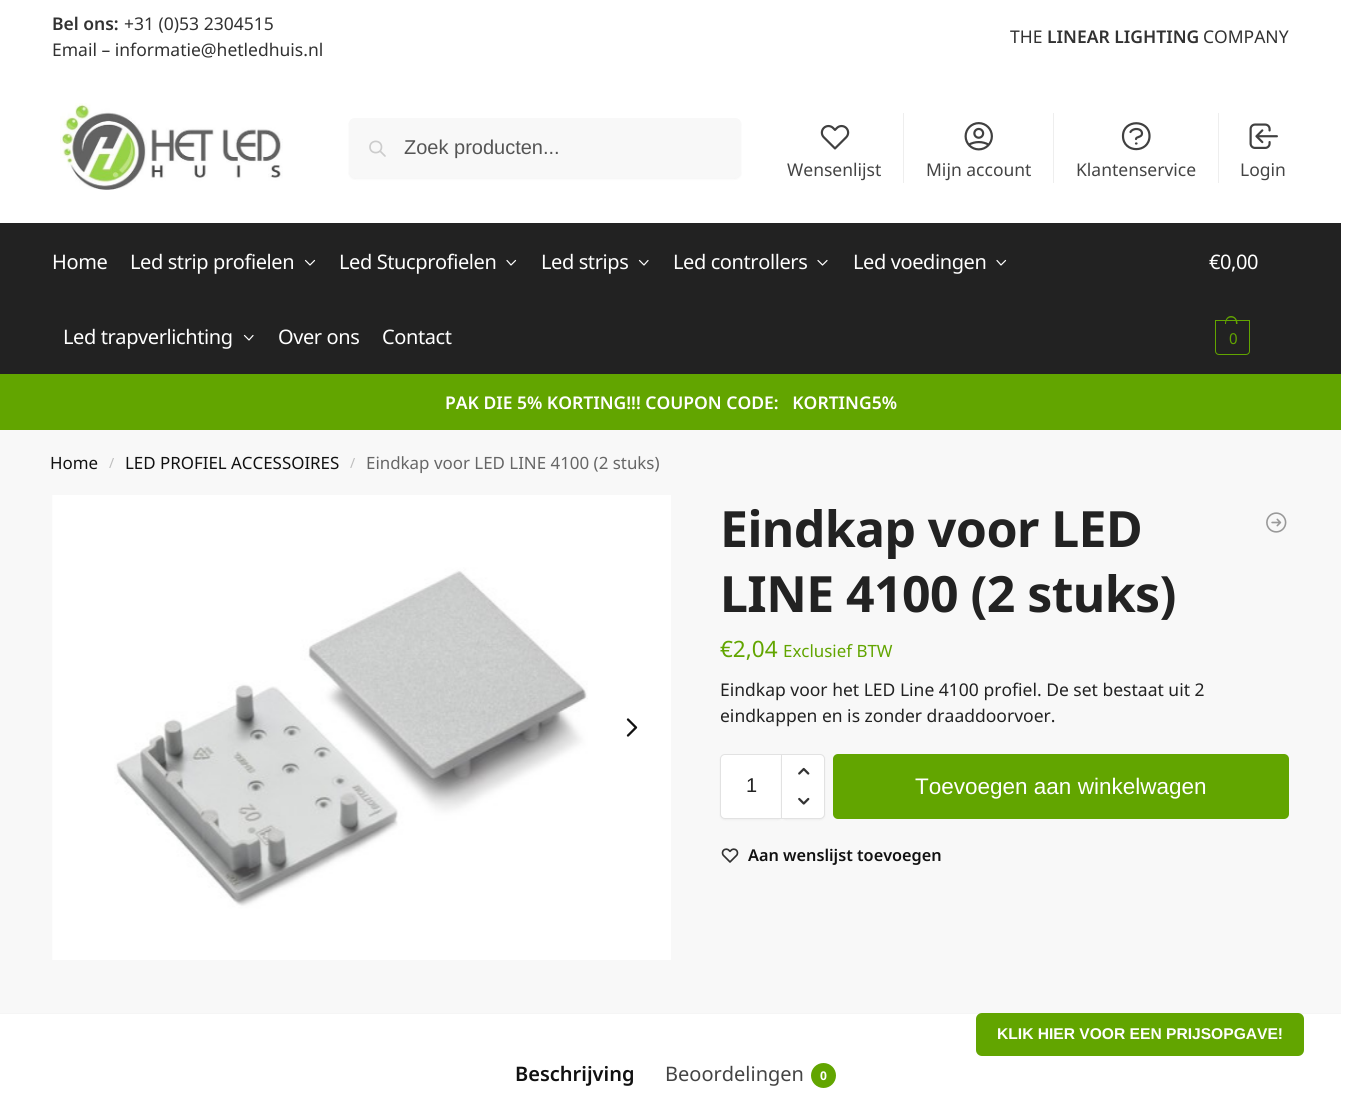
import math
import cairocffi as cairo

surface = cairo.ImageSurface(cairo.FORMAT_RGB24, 1360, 1093)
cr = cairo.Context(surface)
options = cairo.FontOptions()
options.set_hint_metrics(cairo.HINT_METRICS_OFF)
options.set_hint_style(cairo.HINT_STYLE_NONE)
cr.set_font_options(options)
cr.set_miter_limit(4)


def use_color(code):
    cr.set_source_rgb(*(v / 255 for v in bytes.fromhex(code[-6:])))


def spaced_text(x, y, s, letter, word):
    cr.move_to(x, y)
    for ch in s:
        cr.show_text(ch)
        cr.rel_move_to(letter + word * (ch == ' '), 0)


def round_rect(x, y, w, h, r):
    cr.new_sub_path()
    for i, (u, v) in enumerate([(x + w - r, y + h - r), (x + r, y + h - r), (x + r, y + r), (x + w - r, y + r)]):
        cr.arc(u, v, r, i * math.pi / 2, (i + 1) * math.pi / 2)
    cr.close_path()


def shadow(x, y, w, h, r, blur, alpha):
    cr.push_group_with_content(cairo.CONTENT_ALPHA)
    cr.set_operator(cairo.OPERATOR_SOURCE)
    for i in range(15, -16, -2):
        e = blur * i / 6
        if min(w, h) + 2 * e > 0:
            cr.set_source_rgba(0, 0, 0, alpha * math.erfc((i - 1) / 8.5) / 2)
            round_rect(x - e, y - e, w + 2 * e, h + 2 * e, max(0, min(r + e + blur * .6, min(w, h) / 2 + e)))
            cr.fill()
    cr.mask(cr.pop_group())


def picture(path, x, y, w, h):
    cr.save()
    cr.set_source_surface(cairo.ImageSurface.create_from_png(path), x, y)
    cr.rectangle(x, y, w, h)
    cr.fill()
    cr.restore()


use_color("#ffffff")
cr.paint()
cr.select_font_face("Noto Sans SemiBold")
cr.set_font_size(17.5)
use_color("#323232")
cr.move_to(52, 30)
cr.show_text("Bel ons:")
cr.select_font_face("Noto Sans")
cr.move_to(124, 30)
cr.show_text("+31 (0)53 2304515")
cr.move_to(52, 56)
cr.show_text("Email – informatie@hetledhuis.nl")
cr.move_to(1010, 43)
cr.show_text("THE")
cr.select_font_face("Noto Sans SemiBold")
cr.move_to(1047, 43)
cr.show_text("LINEAR LIGHTING")
cr.select_font_face("Noto Sans")
cr.move_to(1203, 43)
cr.show_text("COMPANY")
picture("img1.png", 60, 103, 223, 87)
use_color("#000000")
shadow(349, 119, 392, 60, 6, 1, 0.05)
use_color("#f8f8f8")
round_rect(349, 118, 392, 60, 6)
cr.fill()
cr.new_path()
cr.move_to(385, 156)
cr.line_to(380, 151)
cr.move_to(381.5, 147)
cr.curve_to(381.5, 154.5, 370, 154.5, 370, 147)
cr.curve_to(370, 139.5, 381.5, 139.5, 381.5, 147)
cr.close_path()
use_color("#cccccc")
cr.set_line_width(1.7)
cr.set_line_cap(cairo.LINE_CAP_ROUND)
cr.set_line_join(cairo.LINE_JOIN_ROUND)
cr.stroke()
cr.select_font_face("Liberation Sans")
cr.set_font_size(20)
use_color("#555555")
cr.move_to(404, 154)
cr.show_text("Zoek producten...")
picture("img2.png", 820, 124, 30, 26)
cr.select_font_face("Noto Sans")
cr.set_font_size(17.5)
use_color("#444444")
cr.move_to(787, 176)
cr.show_text("Wensenlijst")
use_color("#eeeeee")
cr.rectangle(903, 113, 1, 70)
cr.fill()
picture("img3.png", 964, 122, 29, 29)
use_color("#444444")
cr.move_to(926, 176)
cr.show_text("Mijn account")
use_color("#eeeeee")
cr.rectangle(1053, 113, 1, 70)
cr.fill()
cr.new_path()
cr.move_to(1130.5, 132)
cr.curve_to(1133, 127.5, 1142, 128, 1142, 133.5)
cr.curve_to(1142, 137.5, 1136, 136.5, 1136, 139)
cr.move_to(1136, 143.5)
cr.line_to(1136.5, 143.5)
cr.move_to(1149.5, 136)
cr.curve_to(1149.5, 153.5, 1123, 153.5, 1123, 136)
cr.curve_to(1123, 119, 1149.5, 119, 1149.5, 136)
cr.close_path()
use_color("#404040")
cr.set_line_width(2.2)
cr.stroke()
use_color("#444444")
cr.move_to(1076, 176)
cr.show_text("Klantenservice")
use_color("#eeeeee")
cr.rectangle(1218, 113, 1, 70)
cr.fill()
picture("img4.png", 1249, 123, 29, 26)
use_color("#444444")
cr.move_to(1240, 176)
cr.show_text("Login")
use_color("#222222")
cr.rectangle(0, 223, 1341, 151)
cr.fill()
cr.set_font_size(20)
use_color("#ffffff")
spaced_text(52, 269, "Home", -0.4, 0)
spaced_text(130, 269, "Led strip profielen", -0.4, 0)
cr.new_path()
cr.move_to(314.5, 260.5)
cr.line_to(310, 265)
cr.line_to(305.5, 260.5)
cr.set_line_width(1.2)
cr.stroke()
spaced_text(339, 269, "Led Stucprofielen", -0.4, 0)
cr.new_path()
cr.move_to(515.5, 260.5)
cr.line_to(511, 265)
cr.line_to(507, 260.5)
cr.stroke()
spaced_text(541, 269, "Led strips", -0.4, 0)
cr.new_path()
cr.move_to(648, 260.5)
cr.line_to(644, 265)
cr.line_to(639.5, 260.5)
cr.stroke()
spaced_text(673, 269, "Led controllers", -0.4, 0)
cr.new_path()
cr.move_to(827, 260.5)
cr.line_to(822.5, 265)
cr.line_to(818, 260.5)
cr.stroke()
spaced_text(853, 269, "Led voedingen", -0.4, 0)
cr.new_path()
cr.move_to(1005.5, 260.5)
cr.line_to(1001, 265)
cr.line_to(997, 260.5)
cr.stroke()
spaced_text(63, 344, "Led trapverlichting", -0.4, 0)
cr.new_path()
cr.move_to(253, 335.5)
cr.line_to(249, 340)
cr.line_to(244.5, 335.5)
cr.stroke()
spaced_text(278, 344, "Over ons", -0.4, 0)
spaced_text(382, 344, "Contact", -0.4, 0)
spaced_text(1209, 269, "€0,00", -0.4, 0)
cr.new_path()
cr.move_to(1215.5, 320.5)
cr.line_to(1249.5, 320.5)
cr.line_to(1249.5, 351)
cr.curve_to(1249.5, 353, 1248, 354.5, 1246, 354.5)
cr.line_to(1219, 354.5)
cr.curve_to(1217, 354.5, 1215.5, 353, 1215.5, 351)
cr.close_path()
use_color("#62a500")
cr.set_line_width(1)
cr.set_line_cap(cairo.LINE_CAP_BUTT)
cr.set_line_join(cairo.LINE_JOIN_MITER)
cr.stroke()
cr.set_fill_rule(cairo.FILL_RULE_EVEN_ODD)
cr.new_path()
cr.move_to(1231, 316)
cr.curve_to(1235.5, 316, 1237.5, 320, 1237.5, 324)
cr.line_to(1225, 324)
cr.curve_to(1225, 320, 1227, 316, 1231, 316)
cr.close_path()
cr.move_to(1231, 317.5)
cr.curve_to(1235, 317.5, 1236, 320.5, 1236, 324)
cr.line_to(1226, 324)
cr.curve_to(1226, 320.5, 1227.5, 317.5, 1231, 317.5)
cr.close_path()
cr.fill()
cr.set_font_size(15)
spaced_text(1229, 344, "0", -1, 0)
cr.rectangle(0, 374, 1341, 56)
cr.fill()
cr.select_font_face("Noto Sans SemiBold")
cr.set_font_size(17.5)
use_color("#ffffff")
cr.move_to(445, 409)
cr.show_text("PAK DIE 5% KORTING!!! COUPON CODE:   KORTING5%")
use_color("#f8f8f8")
cr.rectangle(0, 430, 1341, 583)
cr.fill()
cr.select_font_face("Noto Sans")
cr.set_font_size(16.9)
use_color("#111111")
cr.move_to(50, 469)
cr.show_text("Home")
cr.set_font_size(14)
use_color("#bebebe")
cr.move_to(109, 468)
cr.show_text("/")
cr.set_font_size(16.9)
use_color("#111111")
cr.move_to(125, 469)
cr.show_text("LED PROFIEL ACCESSOIRES")
cr.set_font_size(14)
use_color("#bebebe")
cr.move_to(350, 468)
cr.show_text("/")
cr.set_font_size(16.9)
use_color("#666666")
cr.move_to(366, 469)
cr.show_text("Eindkap voor LED LINE 4100 (2 stuks)")
use_color("#ffffff")
cr.rectangle(53, 495, 618, 465)
cr.fill()
picture("img5.png", 52, 495, 536, 465)
cr.new_path()
cr.move_to(628, 735.5)
cr.line_to(636, 727.5)
cr.line_to(628, 719.5)
use_color("#111111")
cr.set_line_width(2.3)
cr.set_line_cap(cairo.LINE_CAP_ROUND)
cr.set_line_join(cairo.LINE_JOIN_ROUND)
cr.stroke()
cr.select_font_face("Noto Sans", cairo.FONT_SLANT_NORMAL, cairo.FONT_WEIGHT_BOLD)
cr.set_font_size(50)
use_color("#222222")
spaced_text(720, 547, "Eindkap voor LED", -0.6, 0)
spaced_text(720, 612, "LINE 4100 (2 stuks)", -0.6, 0)
picture("img6.png", 1266, 512, 21, 21)
cr.select_font_face("Noto Sans")
cr.set_font_size(22.5)
use_color("#62a500")
cr.move_to(720, 657)
cr.show_text("€2,04")
cr.set_font_size(16.9)
cr.move_to(783, 657)
cr.show_text("Exclusief BTW")
cr.set_font_size(17.5)
use_color("#222222")
cr.move_to(720, 696)
cr.show_text("Eindkap voor het LED Line 4100 profiel. De set bestaat uit 2")
cr.move_to(720, 722)
cr.show_text("eindkappen en is zonder draaddoorvoer.")
use_color("#000000")
shadow(720, 755, 63, 65, 5, 1, 0.05)
use_color("#ffffff")
cr.new_path()
cr.move_to(725, 754.5)
cr.line_to(782.5, 754.5)
cr.line_to(782.5, 818.5)
cr.line_to(725, 818.5)
cr.curve_to(722.5, 818.5, 720.5, 816.5, 720.5, 814)
cr.line_to(720.5, 759)
cr.curve_to(720.5, 756.5, 722.5, 754.5, 725, 754.5)
cr.close_path()
cr.fill_preserve()
use_color("#e2e2e2")
cr.set_line_width(1)
cr.set_line_cap(cairo.LINE_CAP_BUTT)
cr.set_line_join(cairo.LINE_JOIN_MITER)
cr.stroke()
cr.select_font_face("Liberation Sans")
cr.set_font_size(20)
use_color("#222222")
cr.move_to(746, 792)
cr.show_text("1")
use_color("#000000")
shadow(781, 755, 44, 65, 5, 1, 0.05)
use_color("#ffffff")
cr.new_path()
cr.move_to(781.5, 754.5)
cr.line_to(820, 754.5)
cr.curve_to(822.5, 754.5, 824.5, 756.5, 824.5, 759)
cr.line_to(824.5, 814)
cr.curve_to(824.5, 816.5, 822.5, 818.5, 820, 818.5)
cr.line_to(781.5, 818.5)
cr.close_path()
cr.fill_preserve()
use_color("#e2e2e2")
cr.stroke()
picture("img7.png", 798, 767, 12, 8)
picture("img8.png", 798, 797, 12, 8)
use_color("#62a500")
round_rect(833, 754, 456, 65, 5)
cr.fill()
cr.set_font_size(22.5)
use_color("#ffffff")
cr.move_to(915, 794)
cr.show_text("Toevoegen aan winkelwagen")
picture("img9.png", 721, 848, 18, 15)
cr.select_font_face("Noto Sans SemiBold")
cr.set_font_size(16.25)
use_color("#111111")
cr.move_to(748, 861)
cr.show_text("Aan wenslijst toevoegen")
use_color("#f5f5f5")
cr.rectangle(0, 1013, 1341, 1)
cr.fill()
use_color("#62a500")
round_rect(976, 1013, 328, 43, 6)
cr.fill()
cr.select_font_face("Liberation Sans", cairo.FONT_SLANT_NORMAL, cairo.FONT_WEIGHT_BOLD)
cr.set_font_size(15.6)
use_color("#ffffff")
cr.move_to(997, 1039)
cr.show_text("KLIK HIER VOOR EEN PRIJSOPGAVE!")
cr.select_font_face("Noto Sans SemiBold")
cr.set_font_size(20)
use_color("#111111")
cr.move_to(515, 1081)
cr.show_text("Beschrijving")
cr.select_font_face("Noto Sans")
use_color("#444444")
cr.move_to(665, 1081)
cr.show_text("Beoordelingen")
use_color("#62a500")
cr.new_path()
cr.arc(823.5, 1075.5, 12.5, 0, 2 * math.pi)
cr.fill()
cr.select_font_face("Noto Sans", cairo.FONT_SLANT_NORMAL, cairo.FONT_WEIGHT_BOLD)
cr.set_font_size(12)
use_color("#ffffff")
cr.move_to(820, 1080)
cr.show_text("0")
surface.write_to_png("result.png")
